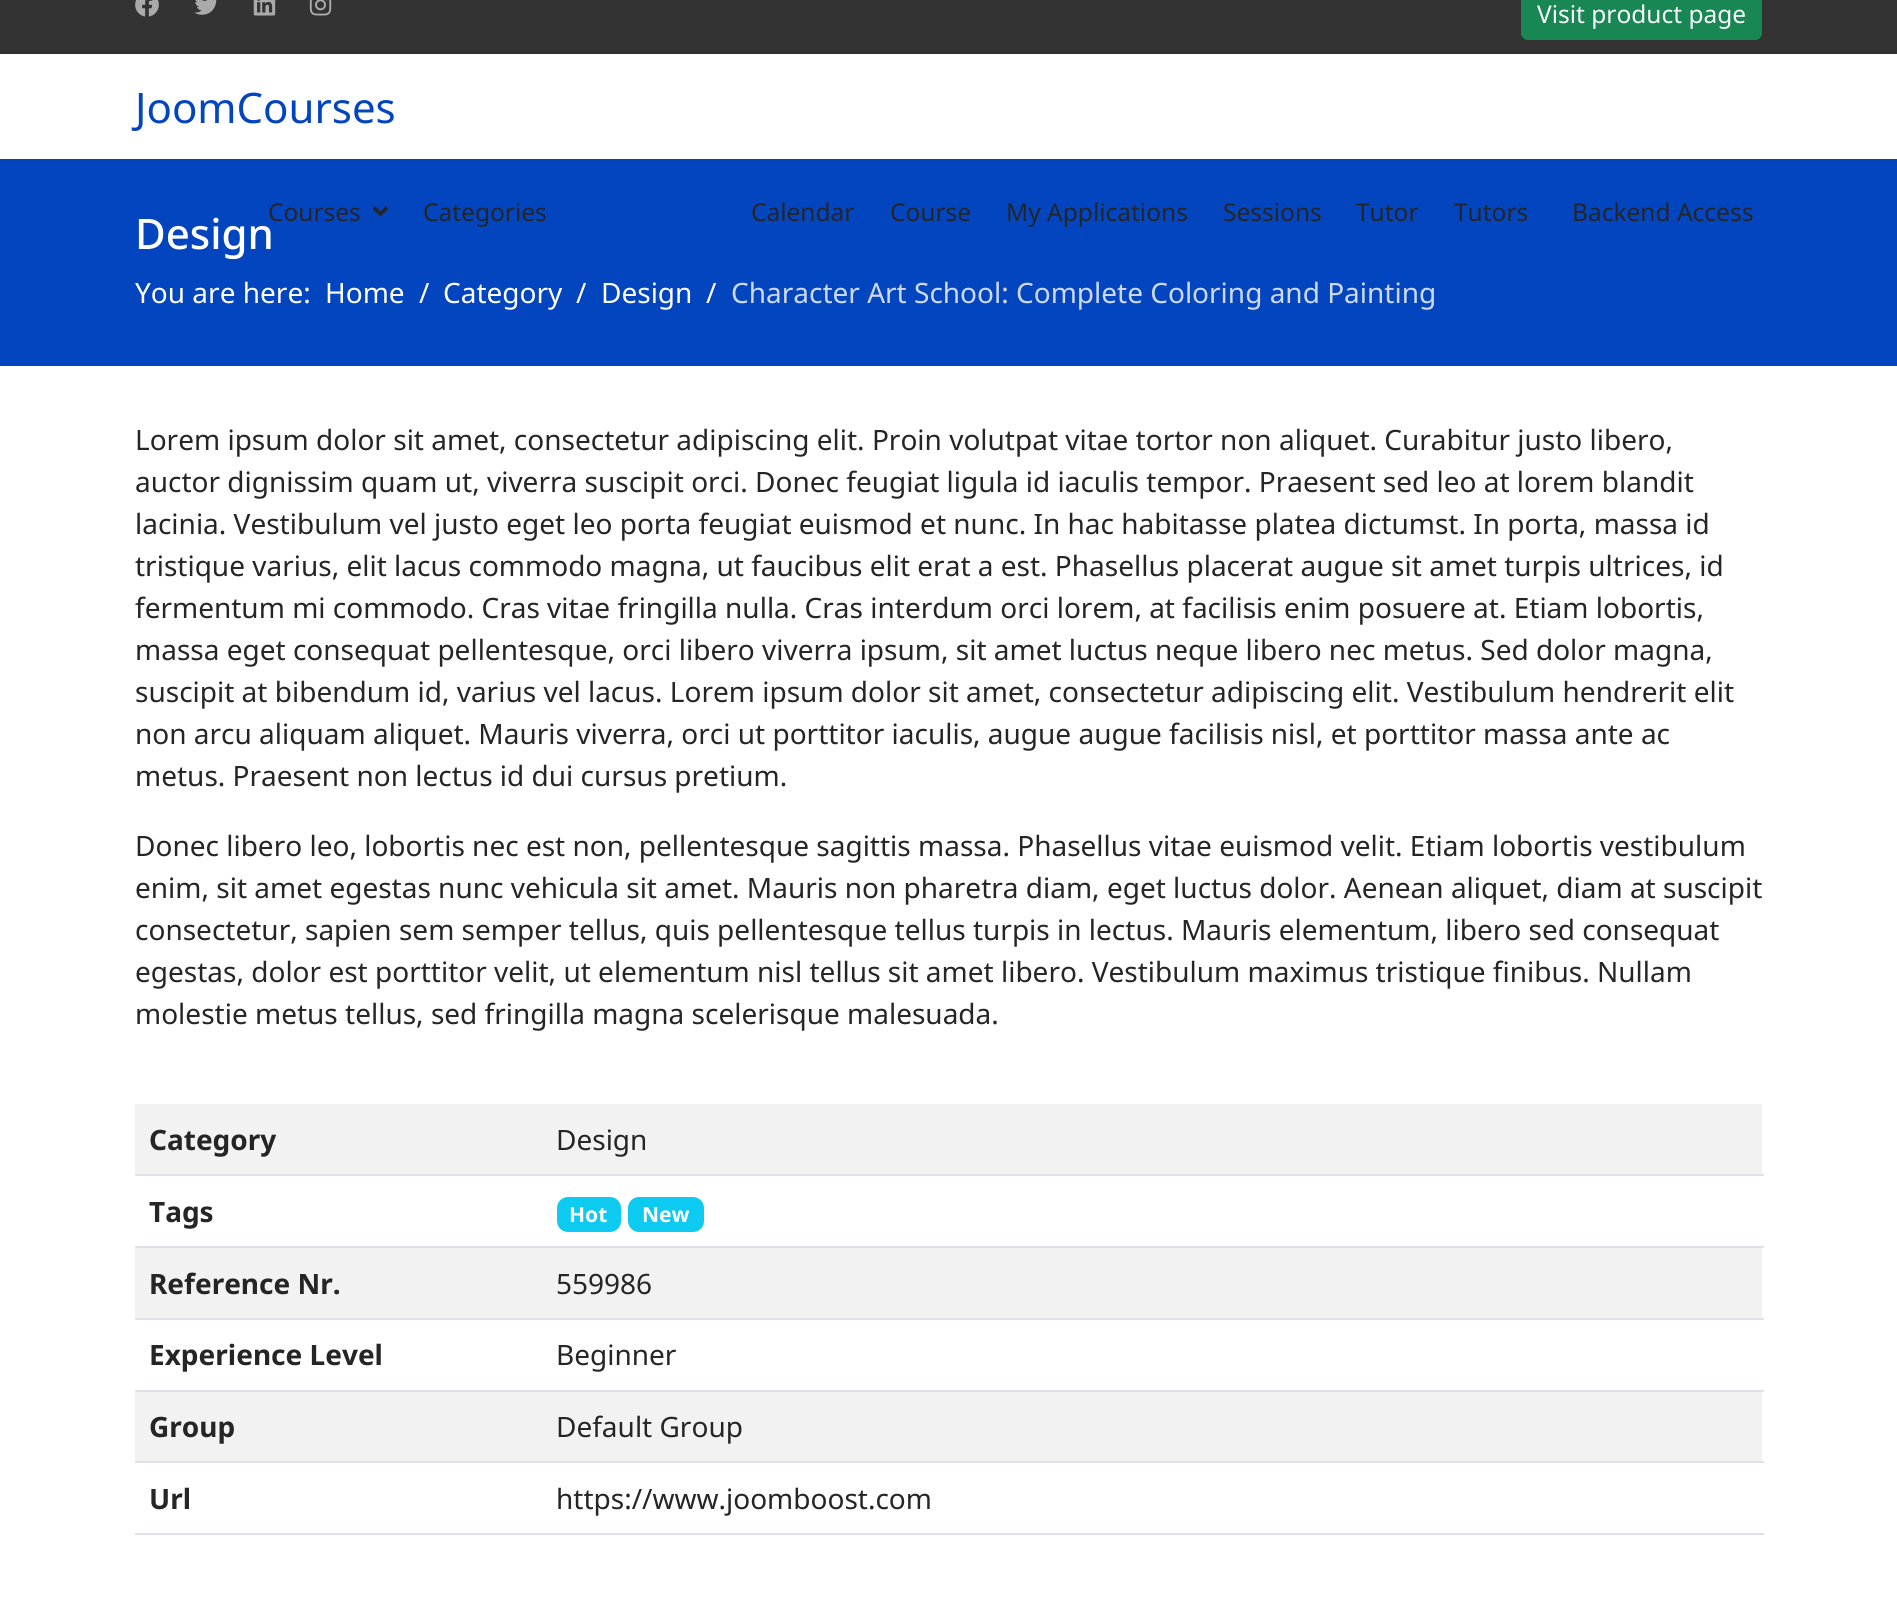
import math
import cairocffi as cairo

surface = cairo.ImageSurface(cairo.FORMAT_RGB24, 1897, 1621)
cr = cairo.Context(surface)
options = cairo.FontOptions()
options.set_hint_metrics(cairo.HINT_METRICS_OFF)
options.set_hint_style(cairo.HINT_STYLE_NONE)
cr.set_font_options(options)
cr.set_miter_limit(4)


def use_color(code):
    cr.set_source_rgb(*(v / 255 for v in bytes.fromhex(code[-6:])))


def round_rect(x, y, w, h, r):
    cr.new_sub_path()
    for i, (u, v) in enumerate([(x + w - r, y + h - r), (x + r, y + h - r), (x + r, y + r), (x + w - r, y + r)]):
        cr.arc(u, v, r, i * math.pi / 2, (i + 1) * math.pi / 2)
    cr.close_path()


def shadow(x, y, w, h, r, blur, alpha):
    cr.push_group_with_content(cairo.CONTENT_ALPHA)
    cr.set_operator(cairo.OPERATOR_SOURCE)
    for i in range(15, -16, -2):
        e = blur * i / 6
        if min(w, h) + 2 * e > 0:
            cr.set_source_rgba(0, 0, 0, alpha * math.erfc((i - 1) / 8.5) / 2)
            round_rect(x - e, y - e, w + 2 * e, h + 2 * e, max(0, min(r + e + blur * .6, min(w, h) / 2 + e)))
            cr.fill()
    cr.mask(cr.pop_group())


def picture(path, x, y, w, h):
    cr.save()
    cr.set_source_surface(cairo.ImageSurface.create_from_png(path), x, y)
    cr.rectangle(x, y, w, h)
    cr.fill()
    cr.restore()


use_color("#ffffff")
cr.paint()
use_color("#333333")
cr.rectangle(0, 0, 1897, 54)
cr.fill()
picture("img1.png", 135, 0, 24, 17)
picture("img2.png", 194, 0, 23, 15)
picture("img3.png", 253, 0, 23, 16)
picture("img4.png", 309, 0, 23, 16)
use_color("#198754")
round_rect(1522, -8, 239, 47, 6)
cr.fill_preserve()
cr.stroke()
cr.select_font_face("Noto Sans")
cr.set_font_size(24.5)
use_color("#f8f9fa")
cr.move_to(1537, 23)
cr.show_text("Visit product page")
use_color("#0345bf")
cr.rectangle(0, 159, 1897, 207)
cr.fill()
use_color("#000000")
shadow(0, 54, 1897, 105, 0, 3.5, 0.1)
use_color("#ffffff")
cr.rectangle(0, 54, 1897, 105)
cr.fill()
cr.set_font_size(42)
use_color("#0345bf")
cr.move_to(135, 123)
cr.show_text("JoomCourses")
cr.set_font_size(24.5)
use_color("#252525")
cr.move_to(268, 221)
cr.show_text("Courses")
picture("img5.png", 372, 206, 17, 11)
cr.move_to(423, 221)
cr.show_text("Categories")
cr.move_to(751, 221)
cr.show_text("Calendar")
cr.move_to(890, 221)
cr.show_text("Course")
cr.move_to(1006, 221)
cr.show_text("My Applications")
cr.move_to(1223, 221)
cr.show_text("Sessions")
cr.move_to(1356, 221)
cr.show_text("Tutor")
cr.move_to(1454, 221)
cr.show_text("Tutors")
cr.move_to(1572, 221)
cr.show_text("Backend Access")
cr.select_font_face("Noto Sans Medium")
cr.set_font_size(42)
use_color("#ffffff")
cr.move_to(135, 249)
cr.show_text("Design")
cr.select_font_face("Noto Sans")
cr.set_font_size(28)
cr.move_to(135, 303)
cr.show_text("You are here:")
cr.move_to(325, 303)
cr.show_text("Home")
cr.move_to(419, 303)
cr.show_text("/")
cr.move_to(443, 303)
cr.show_text("Category")
cr.move_to(576, 303)
cr.show_text("/")
cr.move_to(601, 303)
cr.show_text("Design")
cr.move_to(706, 303)
cr.show_text("/")
use_color("#cddaf2")
cr.move_to(731, 303)
cr.show_text("Character Art School: Complete Coloring and Painting")
use_color("#252525")
cr.move_to(135, 450)
cr.show_text("Lorem ipsum dolor sit amet, consectetur adipiscing elit. Proin volutpat vitae tortor non aliquet. Curabitur justo libero,")
cr.move_to(135, 492)
cr.show_text("auctor dignissim quam ut, viverra suscipit orci. Donec feugiat ligula id iaculis tempor. Praesent sed leo at lorem blandit")
cr.move_to(135, 534)
cr.show_text("lacinia. Vestibulum vel justo eget leo porta feugiat euismod et nunc. In hac habitasse platea dictumst. In porta, massa id")
cr.move_to(135, 576)
cr.show_text("tristique varius, elit lacus commodo magna, ut faucibus elit erat a est. Phasellus placerat augue sit amet turpis ultrices, id")
cr.move_to(135, 618)
cr.show_text("fermentum mi commodo. Cras vitae fringilla nulla. Cras interdum orci lorem, at facilisis enim posuere at. Etiam lobortis,")
cr.move_to(135, 660)
cr.show_text("massa eget consequat pellentesque, orci libero viverra ipsum, sit amet luctus neque libero nec metus. Sed dolor magna,")
cr.move_to(135, 702)
cr.show_text("suscipit at bibendum id, varius vel lacus. Lorem ipsum dolor sit amet, consectetur adipiscing elit. Vestibulum hendrerit elit")
cr.move_to(135, 744)
cr.show_text("non arcu aliquam aliquet. Mauris viverra, orci ut porttitor iaculis, augue augue facilisis nisl, et porttitor massa ante ac")
cr.move_to(135, 786)
cr.show_text("metus. Praesent non lectus id dui cursus pretium.")
cr.move_to(135, 856)
cr.show_text("Donec libero leo, lobortis nec est non, pellentesque sagittis massa. Phasellus vitae euismod velit. Etiam lobortis vestibulum")
cr.move_to(135, 898)
cr.show_text("enim, sit amet egestas nunc vehicula sit amet. Mauris non pharetra diam, eget luctus dolor. Aenean aliquet, diam at suscipit")
cr.move_to(135, 940)
cr.show_text("consectetur, sapien sem semper tellus, quis pellentesque tellus turpis in lectus. Mauris elementum, libero sed consequat")
cr.move_to(135, 982)
cr.show_text("egestas, dolor est porttitor velit, ut elementum nisl tellus sit amet libero. Vestibulum maximus tristique finibus. Nullam")
cr.move_to(135, 1024)
cr.show_text("molestie metus tellus, sed fringilla magna scelerisque malesuada.")
use_color("#f2f2f2")
cr.rectangle(135, 1104, 1627, 70)
cr.fill()
cr.select_font_face("Noto Sans", cairo.FONT_SLANT_NORMAL, cairo.FONT_WEIGHT_BOLD)
use_color("#252525")
cr.move_to(149, 1150)
cr.show_text("Category")
use_color("#dee2e6")
cr.rectangle(135, 1174, 1629, 2)
cr.fill()
cr.select_font_face("Noto Sans")
use_color("#252525")
cr.move_to(556, 1150)
cr.show_text("Design")
cr.select_font_face("Noto Sans", cairo.FONT_SLANT_NORMAL, cairo.FONT_WEIGHT_BOLD)
cr.move_to(149, 1222)
cr.show_text("Tags")
use_color("#dee2e6")
cr.rectangle(135, 1246, 1629, 2)
cr.fill()
use_color("#0dcaf0")
round_rect(557, 1197, 64, 35, 11)
cr.fill()
cr.set_font_size(21)
use_color("#ffffff")
cr.move_to(569, 1222)
cr.show_text("Hot")
use_color("#0dcaf0")
round_rect(628, 1197, 76, 35, 11)
cr.fill()
use_color("#ffffff")
cr.move_to(642, 1222)
cr.show_text("New")
use_color("#f2f2f2")
cr.rectangle(135, 1248, 1627, 70)
cr.fill()
cr.set_font_size(28)
use_color("#252525")
cr.move_to(149, 1294)
cr.show_text("Reference Nr.")
use_color("#dee2e6")
cr.rectangle(135, 1318, 1629, 2)
cr.fill()
cr.select_font_face("Noto Sans")
use_color("#252525")
cr.move_to(556, 1294)
cr.show_text("559986")
cr.select_font_face("Noto Sans", cairo.FONT_SLANT_NORMAL, cairo.FONT_WEIGHT_BOLD)
cr.move_to(149, 1365)
cr.show_text("Experience Level")
use_color("#dee2e6")
cr.rectangle(135, 1390, 1629, 2)
cr.fill()
cr.select_font_face("Noto Sans")
use_color("#252525")
cr.move_to(556, 1365)
cr.show_text("Beginner")
use_color("#f2f2f2")
cr.rectangle(135, 1392, 1627, 69)
cr.fill()
cr.select_font_face("Noto Sans", cairo.FONT_SLANT_NORMAL, cairo.FONT_WEIGHT_BOLD)
use_color("#252525")
cr.move_to(149, 1437)
cr.show_text("Group")
use_color("#dee2e6")
cr.rectangle(135, 1461, 1629, 2)
cr.fill()
cr.select_font_face("Noto Sans")
use_color("#252525")
cr.move_to(556, 1437)
cr.show_text("Default Group")
cr.select_font_face("Noto Sans", cairo.FONT_SLANT_NORMAL, cairo.FONT_WEIGHT_BOLD)
cr.move_to(149, 1509)
cr.show_text("Url")
use_color("#dee2e6")
cr.rectangle(135, 1533, 1629, 2)
cr.fill()
cr.select_font_face("Noto Sans")
use_color("#252525")
cr.move_to(556, 1509)
cr.show_text("https://www.joomboost.com")
surface.write_to_png("result.png")
